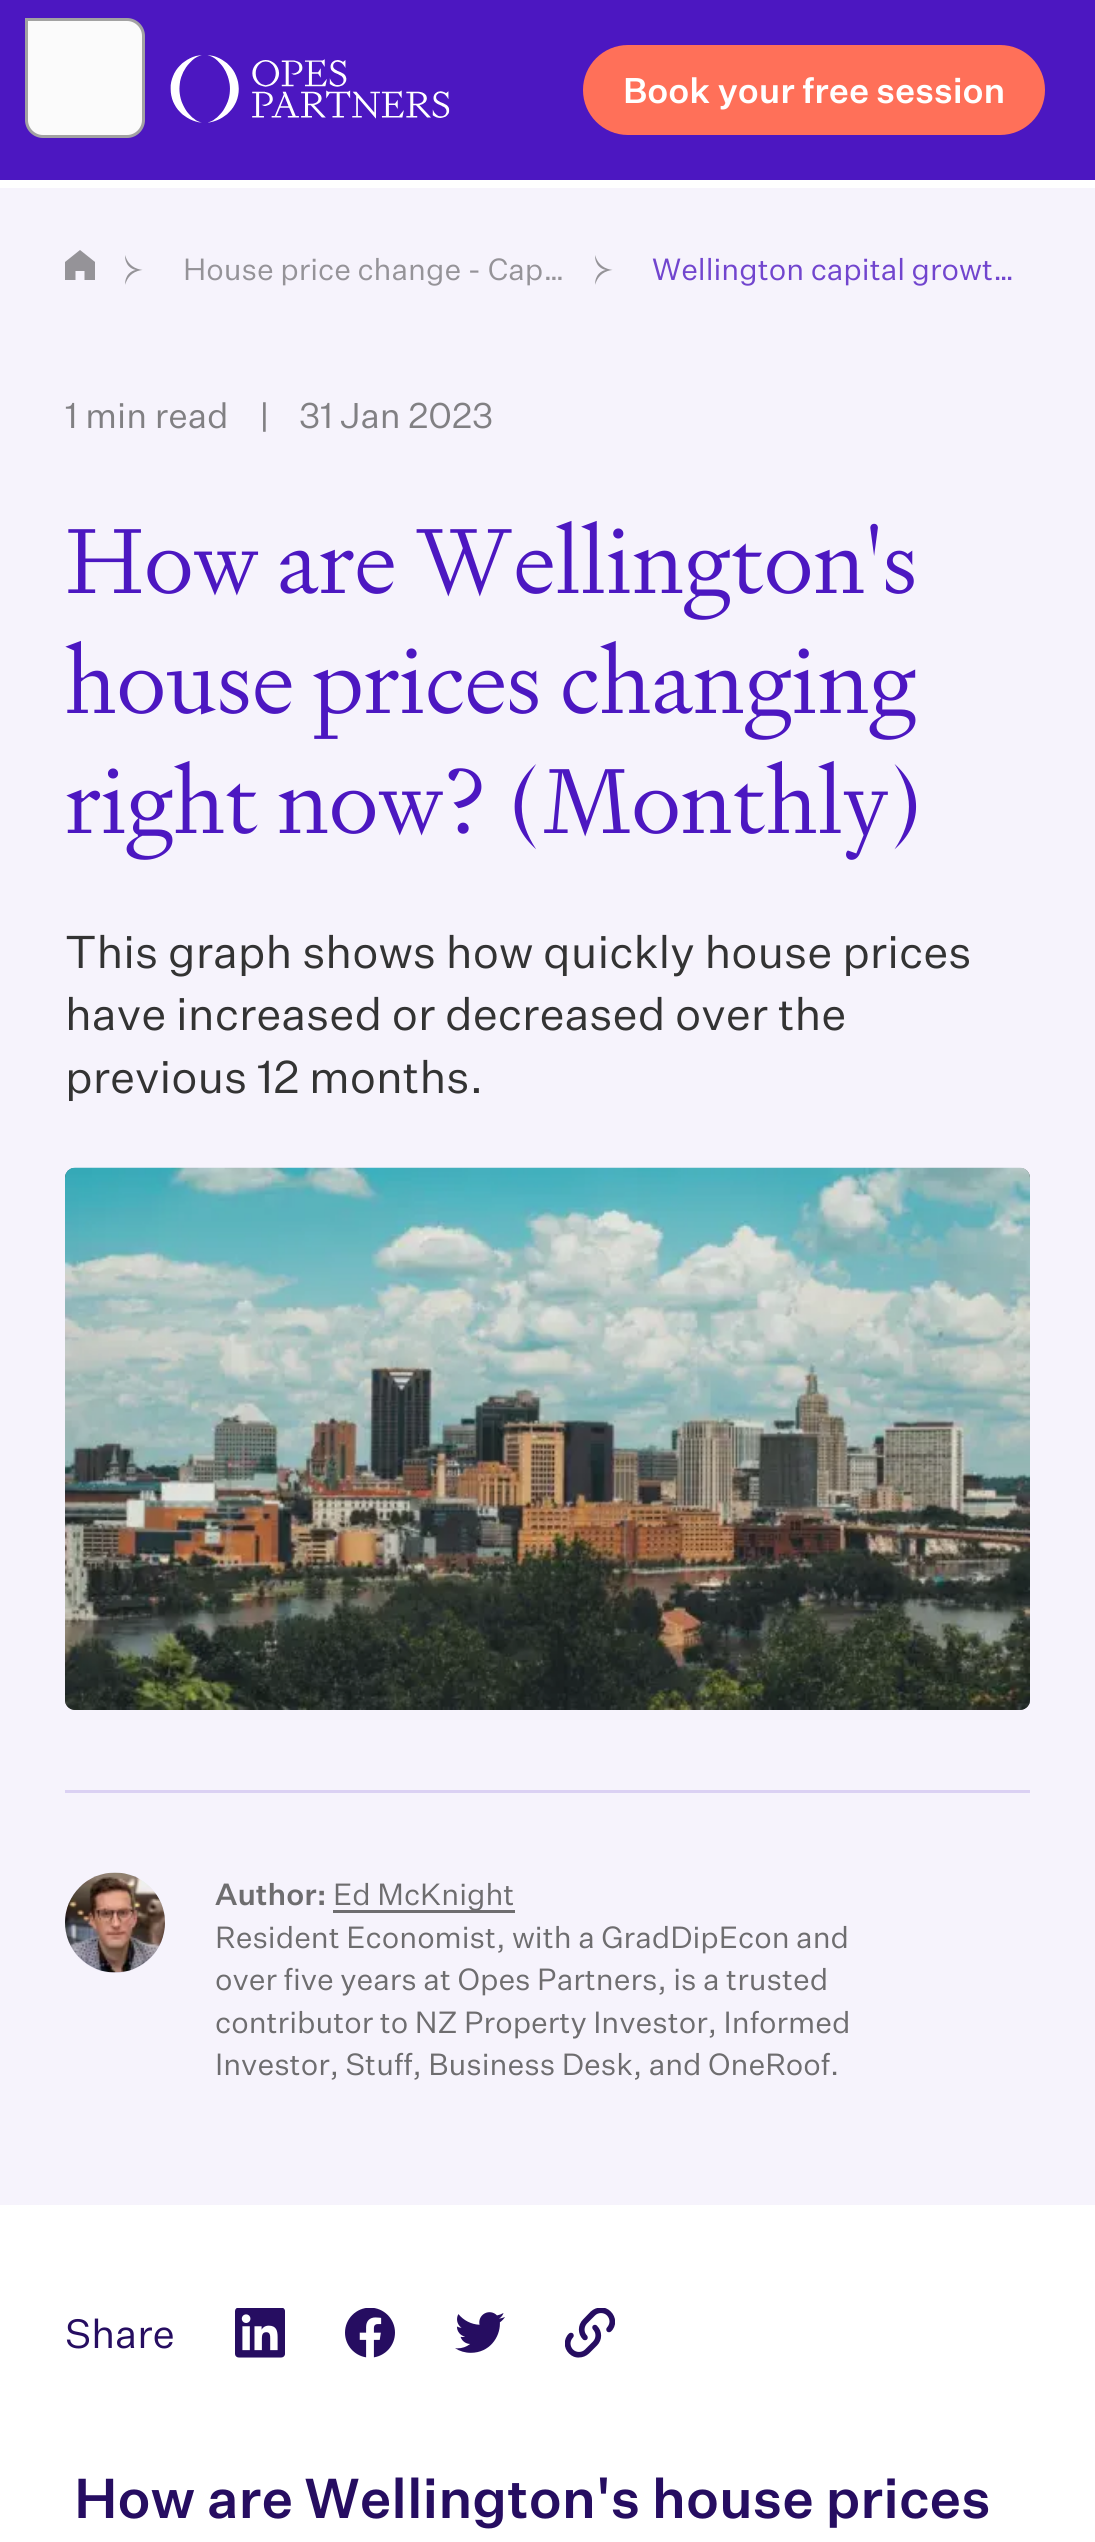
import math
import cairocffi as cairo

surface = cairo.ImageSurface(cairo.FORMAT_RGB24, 1095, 2542)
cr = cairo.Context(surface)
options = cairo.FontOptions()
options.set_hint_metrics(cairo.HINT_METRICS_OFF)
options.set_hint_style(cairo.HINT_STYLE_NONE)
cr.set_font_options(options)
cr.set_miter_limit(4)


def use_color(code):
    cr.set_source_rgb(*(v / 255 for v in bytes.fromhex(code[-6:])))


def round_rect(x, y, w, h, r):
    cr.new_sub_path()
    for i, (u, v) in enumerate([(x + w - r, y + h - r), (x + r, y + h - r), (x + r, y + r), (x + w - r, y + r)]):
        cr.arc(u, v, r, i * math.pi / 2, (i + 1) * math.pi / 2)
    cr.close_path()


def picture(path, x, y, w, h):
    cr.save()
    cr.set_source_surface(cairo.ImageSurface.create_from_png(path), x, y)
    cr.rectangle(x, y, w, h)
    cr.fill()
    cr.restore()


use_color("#ffffff")
cr.paint()
use_color("#4c17c1")
cr.rectangle(0, 0, 1095, 180)
cr.fill()
use_color("#fbfbfb")
cr.new_path()
cr.move_to(26.5, 19.5)
cr.line_to(127, 19.5)
cr.curve_to(136, 19.5, 143.5, 27, 143.5, 36)
cr.line_to(143.5, 120)
cr.curve_to(143.5, 129, 136, 136.5, 127, 136.5)
cr.line_to(43, 136.5)
cr.curve_to(34, 136.5, 26.5, 129, 26.5, 120)
cr.close_path()
cr.fill_preserve()
use_color("#a2a2a2")
cr.set_line_width(3)
cr.stroke()
picture("img1.png", 170, 55, 280, 68)
use_color("#ff7059")
round_rect(583, 45, 462, 90, 45)
cr.fill()
cr.select_font_face("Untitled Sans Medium")
cr.set_font_size(35)
use_color("#ffffff")
cr.move_to(623, 103)
cr.show_text("Book your free session")
use_color("#f6f3fc")
cr.rectangle(0, 188, 1095, 2017)
cr.fill()
use_color("#959398")
cr.new_path()
cr.move_to(80, 250)
cr.line_to(65, 262)
cr.line_to(65, 280)
cr.line_to(75.5, 280)
cr.line_to(75.5, 271)
cr.line_to(84.5, 271)
cr.line_to(84.5, 280)
cr.line_to(95, 280)
cr.line_to(95, 262)
cr.close_path()
cr.fill()
picture("img2.png", 125, 255, 18, 30)
cr.select_font_face("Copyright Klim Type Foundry")
cr.set_font_size(30)
cr.move_to(183, 280)
cr.show_text("House price change - Cap…")
picture("img2.png", 595, 255, 18, 30)
use_color("#7145ce")
cr.move_to(652, 280)
cr.show_text("Wellington capital growt…")
cr.set_font_size(35)
use_color("#818083")
cr.move_to(65, 428)
cr.show_text("1 min read")
cr.move_to(259, 428)
cr.show_text("|")
cr.move_to(299, 428)
cr.show_text("31 Jan 2023")
cr.select_font_face("Copyright Klim Type Foundry Light")
cr.set_font_size(92.5)
use_color("#4c17c1")
cr.move_to(65, 593)
cr.show_text("How are Wellington's")
cr.move_to(65, 713)
cr.show_text("house prices changing")
cr.move_to(65, 833)
cr.show_text("right now? (Monthly)")
cr.select_font_face("Copyright Klim Type Foundry")
cr.set_font_size(45)
use_color("#333333")
cr.move_to(65, 968)
cr.show_text("This graph shows how quickly house prices")
cr.move_to(65, 1030)
cr.show_text("have increased or decreased over the")
cr.move_to(65, 1093)
cr.show_text("previous 12 months.")
round_rect(65, 1168, 965, 542, 10)
cr.fill()
picture("img3.png", 65, 1167, 965, 543)
use_color("#dbd1f3")
cr.rectangle(65, 1790, 965, 3)
cr.fill()
use_color("#e1dcec")
cr.arc(115, 1923, 50, 0, 2 * math.pi)
cr.fill()
picture("img4.png", 65, 1872, 100, 101)
cr.select_font_face("Untitled Sans Medium")
cr.set_font_size(30)
use_color("#6e6d6f")
cr.move_to(215, 1905)
cr.show_text("Author:")
cr.rectangle(333, 1910, 182, 3)
cr.fill()
cr.select_font_face("Copyright Klim Type Foundry")
cr.move_to(333, 1905)
cr.show_text("Ed McKnight")
cr.move_to(215, 1948)
cr.show_text("Resident Economist, with a GradDipEcon and")
cr.move_to(215, 1990)
cr.show_text("over five years at Opes Partners, is a trusted")
cr.move_to(215, 2033)
cr.show_text("contributor to NZ Property Investor, Informed")
cr.move_to(215, 2075)
cr.show_text("Investor, Stuff, Business Desk, and OneRoof.")
cr.set_font_size(40)
use_color("#260d61")
cr.move_to(65, 2348)
cr.show_text("Share")
picture("img5.png", 235, 2308, 50, 50)
picture("img6.png", 345, 2308, 50, 50)
picture("img7.png", 455, 2312, 50, 41)
picture("img8.png", 565, 2308, 50, 50)
cr.select_font_face("Untitled Sans Medium")
cr.set_font_size(55)
cr.move_to(74, 2518)
cr.show_text("How are Wellington's house prices")
surface.write_to_png("result.png")
